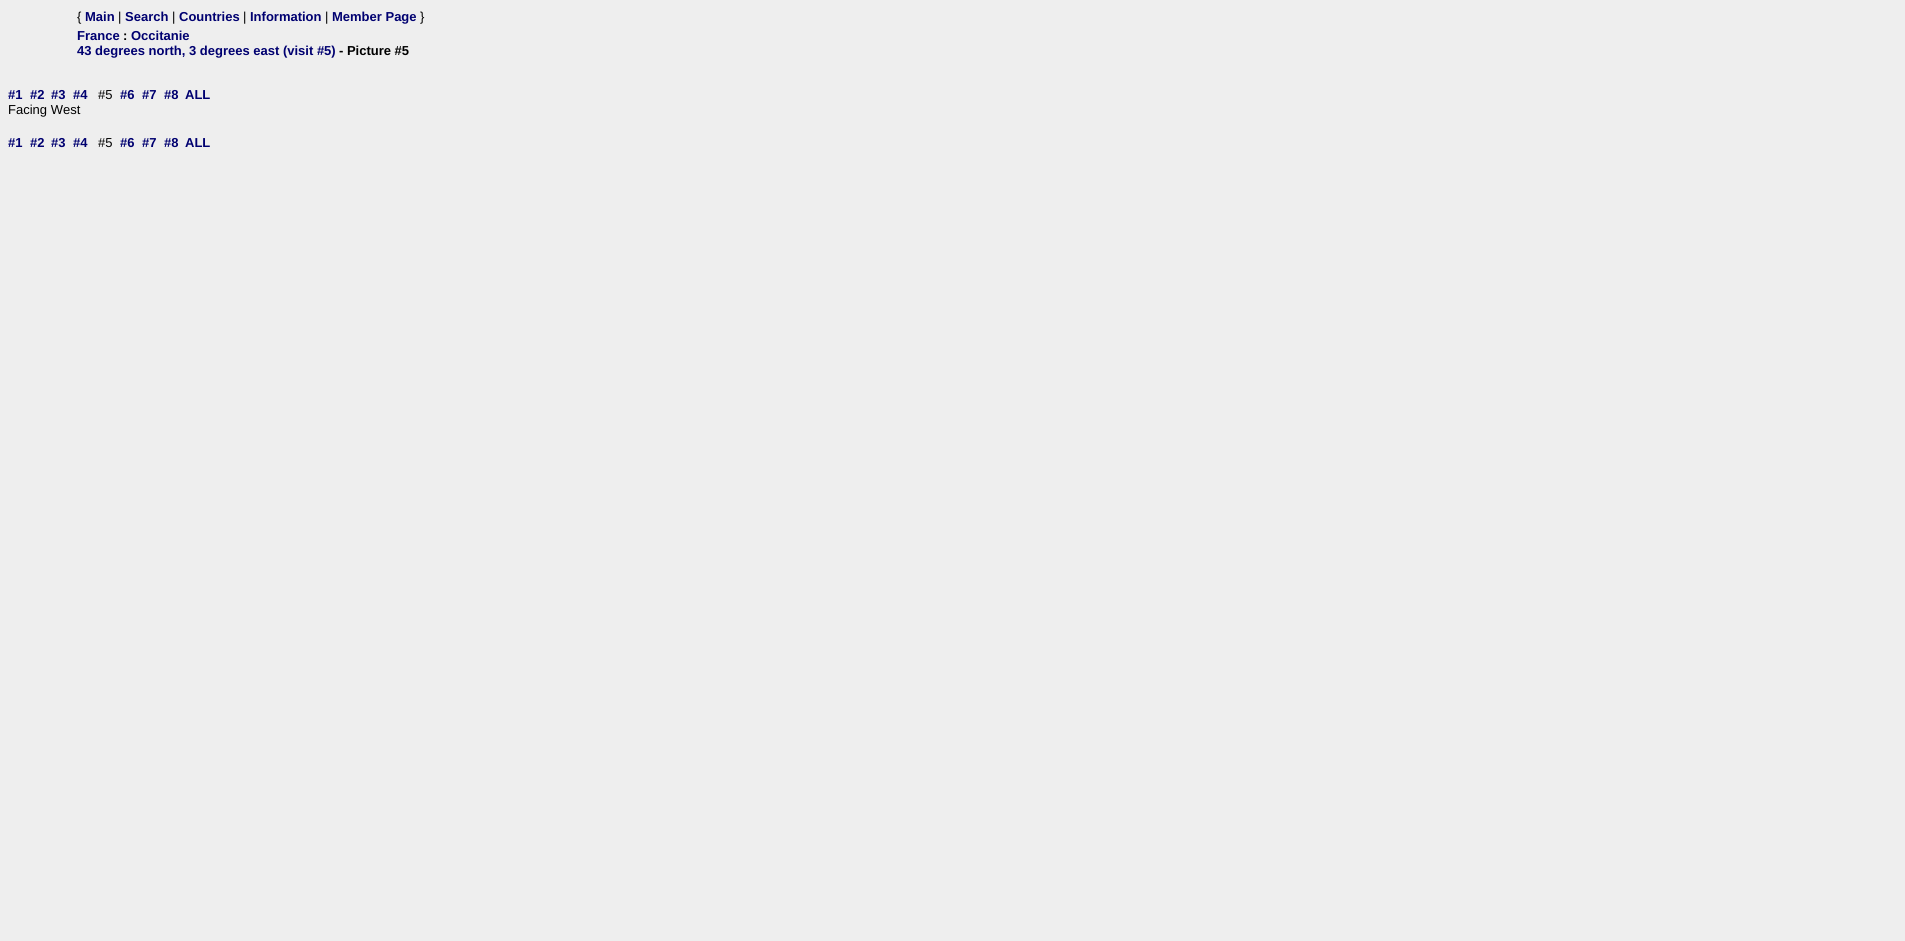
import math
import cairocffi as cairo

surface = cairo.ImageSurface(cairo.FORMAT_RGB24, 1905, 941)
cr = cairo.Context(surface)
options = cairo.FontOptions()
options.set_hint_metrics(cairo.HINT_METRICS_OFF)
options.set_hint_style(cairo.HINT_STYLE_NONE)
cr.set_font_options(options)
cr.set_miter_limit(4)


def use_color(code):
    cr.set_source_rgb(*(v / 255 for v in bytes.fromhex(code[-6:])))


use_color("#eeeeee")
cr.paint()
cr.select_font_face("Liberation Sans")
cr.set_font_size(13)
use_color("#000000")
cr.move_to(77, 21)
cr.show_text("{")
cr.select_font_face("Liberation Sans", cairo.FONT_SLANT_NORMAL, cairo.FONT_WEIGHT_BOLD)
use_color("#000070")
cr.move_to(85, 21)
cr.show_text("Main")
cr.select_font_face("Liberation Sans")
use_color("#000000")
cr.move_to(118, 21)
cr.show_text("|")
cr.select_font_face("Liberation Sans", cairo.FONT_SLANT_NORMAL, cairo.FONT_WEIGHT_BOLD)
use_color("#000070")
cr.move_to(125, 21)
cr.show_text("Search")
cr.select_font_face("Liberation Sans")
use_color("#000000")
cr.move_to(172, 21)
cr.show_text("|")
cr.select_font_face("Liberation Sans", cairo.FONT_SLANT_NORMAL, cairo.FONT_WEIGHT_BOLD)
use_color("#000070")
cr.move_to(179, 21)
cr.show_text("Countries")
cr.select_font_face("Liberation Sans")
use_color("#000000")
cr.move_to(243, 21)
cr.show_text("|")
cr.select_font_face("Liberation Sans", cairo.FONT_SLANT_NORMAL, cairo.FONT_WEIGHT_BOLD)
use_color("#000070")
cr.move_to(250, 21)
cr.show_text("Information")
cr.select_font_face("Liberation Sans")
use_color("#000000")
cr.move_to(325, 21)
cr.show_text("|")
cr.select_font_face("Liberation Sans", cairo.FONT_SLANT_NORMAL, cairo.FONT_WEIGHT_BOLD)
use_color("#000070")
cr.move_to(332, 21)
cr.show_text("Member Page")
cr.select_font_face("Liberation Sans")
use_color("#000000")
cr.move_to(420, 21)
cr.show_text("}")
cr.select_font_face("Liberation Sans", cairo.FONT_SLANT_NORMAL, cairo.FONT_WEIGHT_BOLD)
use_color("#000070")
cr.move_to(77, 40)
cr.show_text("France")
use_color("#000000")
cr.move_to(123, 40)
cr.show_text(":")
use_color("#000070")
cr.move_to(131, 40)
cr.show_text("Occitanie")
cr.move_to(77, 55)
cr.show_text("43 degrees north, 3 degrees east (visit #5)")
use_color("#000000")
cr.move_to(339, 55)
cr.show_text("- Picture #5")
use_color("#000070")
cr.move_to(8, 99)
cr.show_text("#1")
cr.move_to(30, 99)
cr.show_text("#2")
cr.move_to(51, 99)
cr.show_text("#3")
cr.move_to(73, 99)
cr.show_text("#4")
cr.select_font_face("Liberation Sans")
use_color("#000000")
cr.move_to(98, 99)
cr.show_text("#5")
cr.select_font_face("Liberation Sans", cairo.FONT_SLANT_NORMAL, cairo.FONT_WEIGHT_BOLD)
use_color("#000070")
cr.move_to(120, 99)
cr.show_text("#6")
cr.move_to(142, 99)
cr.show_text("#7")
cr.move_to(164, 99)
cr.show_text("#8")
cr.move_to(185, 99)
cr.show_text("ALL")
cr.select_font_face("Liberation Sans")
use_color("#000000")
cr.move_to(8, 114)
cr.show_text("Facing West")
cr.select_font_face("Liberation Sans", cairo.FONT_SLANT_NORMAL, cairo.FONT_WEIGHT_BOLD)
use_color("#000070")
cr.move_to(8, 147)
cr.show_text("#1")
cr.move_to(30, 147)
cr.show_text("#2")
cr.move_to(51, 147)
cr.show_text("#3")
cr.move_to(73, 147)
cr.show_text("#4")
cr.select_font_face("Liberation Sans")
use_color("#000000")
cr.move_to(98, 147)
cr.show_text("#5")
cr.select_font_face("Liberation Sans", cairo.FONT_SLANT_NORMAL, cairo.FONT_WEIGHT_BOLD)
use_color("#000070")
cr.move_to(120, 147)
cr.show_text("#6")
cr.move_to(142, 147)
cr.show_text("#7")
cr.move_to(164, 147)
cr.show_text("#8")
cr.move_to(185, 147)
cr.show_text("ALL")
surface.write_to_png("result.png")
